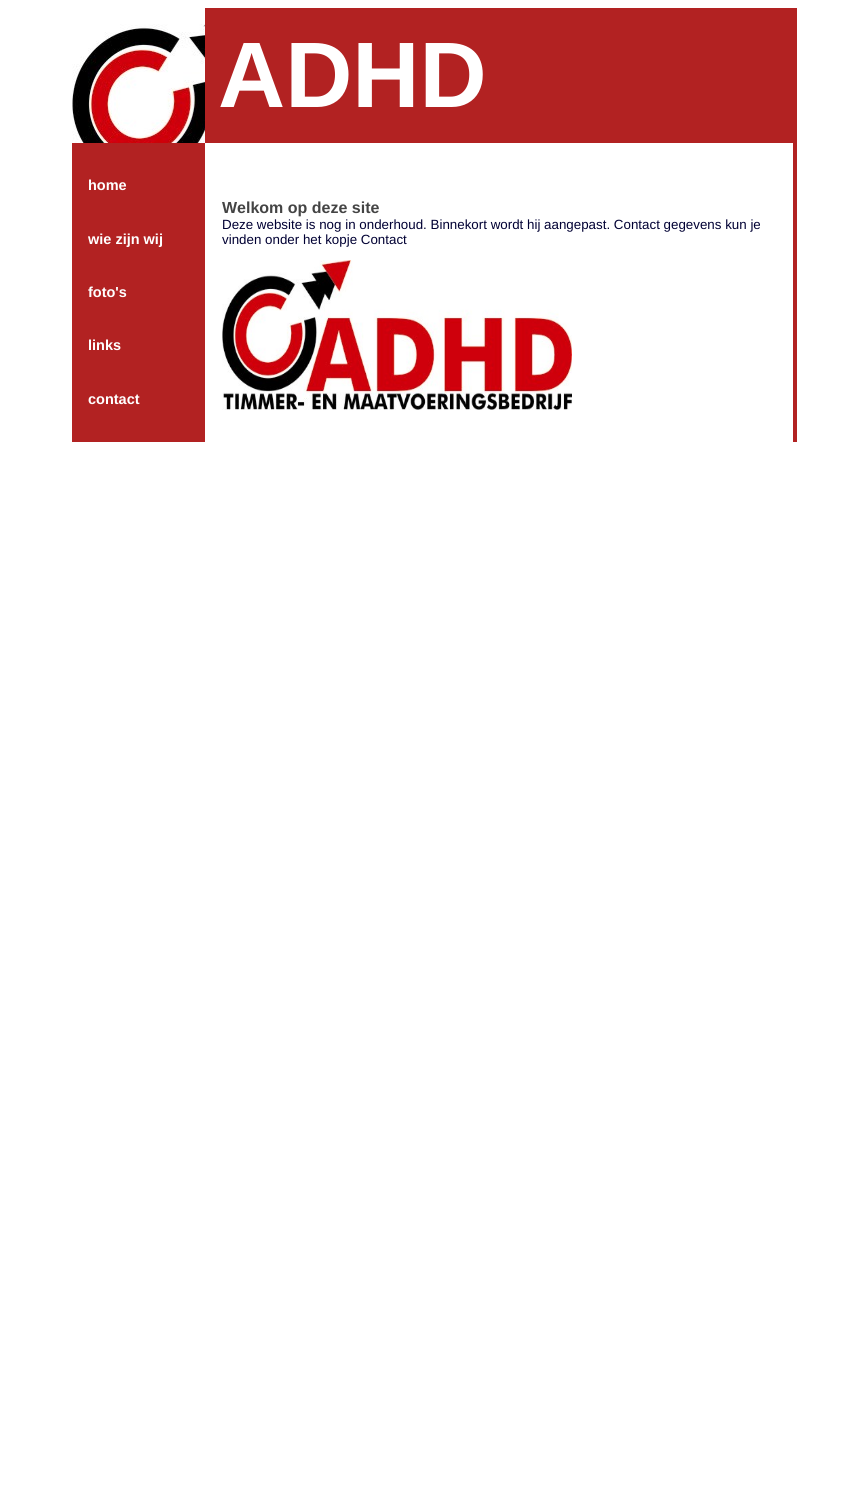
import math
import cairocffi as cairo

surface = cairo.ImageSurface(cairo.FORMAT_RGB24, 868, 1498)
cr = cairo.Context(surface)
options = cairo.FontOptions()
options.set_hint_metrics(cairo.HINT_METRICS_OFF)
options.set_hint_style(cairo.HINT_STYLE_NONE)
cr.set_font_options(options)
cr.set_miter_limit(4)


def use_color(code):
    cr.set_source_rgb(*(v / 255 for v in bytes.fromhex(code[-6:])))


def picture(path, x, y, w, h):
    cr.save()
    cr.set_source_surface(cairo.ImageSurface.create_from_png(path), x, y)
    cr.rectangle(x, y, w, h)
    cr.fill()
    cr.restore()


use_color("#ffffff")
cr.paint()
use_color("#b22222")
cr.rectangle(793, 8, 4, 434)
cr.fill()
picture("img1.png", 72, 24, 133, 119)
cr.rectangle(205, 8, 588, 135)
cr.fill()
cr.select_font_face("Liberation Sans", cairo.FONT_SLANT_NORMAL, cairo.FONT_WEIGHT_BOLD)
cr.set_font_size(93)
use_color("#ffffff")
cr.move_to(218, 107)
cr.show_text("ADHD")
use_color("#b22222")
cr.rectangle(72, 143, 133, 299)
cr.fill()
cr.set_font_size(14.5)
use_color("#ffffff")
cr.move_to(88, 190)
cr.show_text("home")
cr.move_to(88, 244)
cr.show_text("wie zijn wij")
cr.move_to(88, 297)
cr.show_text("foto's")
cr.move_to(88, 350)
cr.show_text("links")
cr.move_to(88, 404)
cr.show_text("contact")
cr.set_font_size(16)
use_color("#444444")
cr.move_to(222, 213)
cr.show_text("Welkom op deze site")
cr.select_font_face("Liberation Sans")
cr.set_font_size(13.35)
use_color("#000033")
cr.move_to(222, 229)
cr.show_text("Deze website is nog in onderhoud. Binnekort wordt hij aangepast. Contact gegevens kun je")
cr.move_to(222, 244)
cr.show_text("vinden onder het kopje Contact")
picture("img2.png", 222, 260, 350, 150)
surface.write_to_png("result.png")
